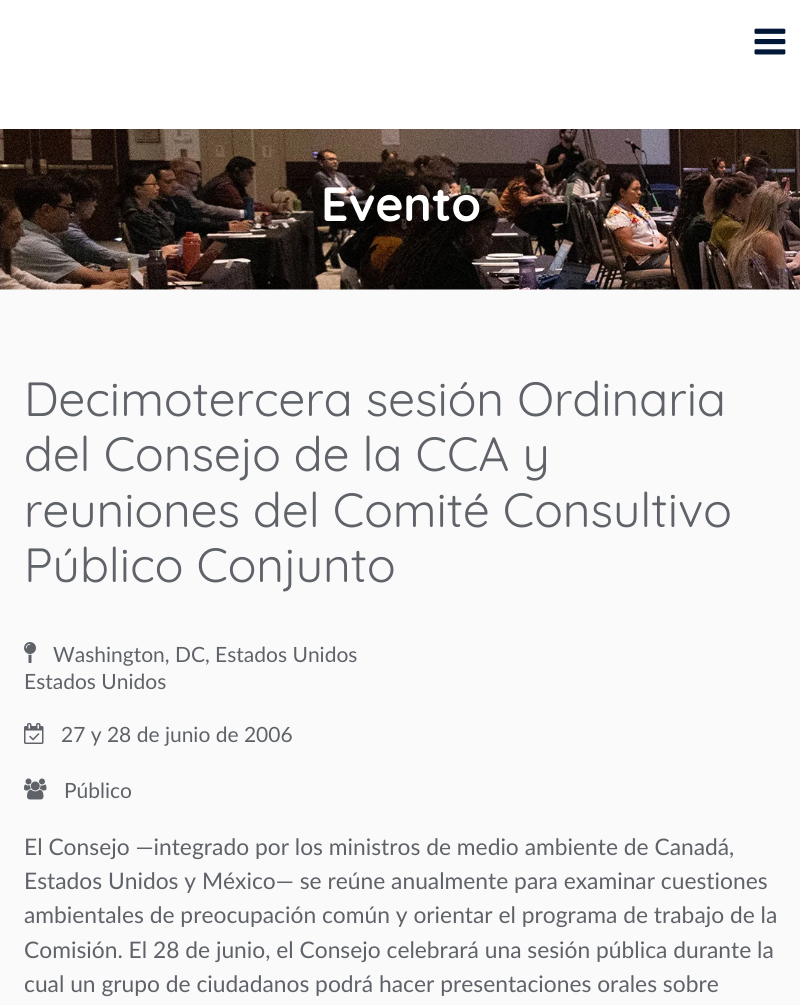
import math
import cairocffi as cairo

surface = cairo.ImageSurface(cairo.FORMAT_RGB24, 800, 1005)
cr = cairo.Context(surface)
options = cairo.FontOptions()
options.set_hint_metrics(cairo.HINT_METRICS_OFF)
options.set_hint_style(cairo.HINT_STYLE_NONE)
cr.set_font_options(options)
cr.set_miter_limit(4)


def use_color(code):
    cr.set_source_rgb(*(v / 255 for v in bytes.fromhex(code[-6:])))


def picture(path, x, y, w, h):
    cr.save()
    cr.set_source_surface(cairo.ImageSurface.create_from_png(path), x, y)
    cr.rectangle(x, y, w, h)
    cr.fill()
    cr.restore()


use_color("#ffffff")
cr.paint()
picture("img1.png", 0, 129, 800, 161)
picture("img2.png", 754, 28, 32, 27)
cr.select_font_face("Quicksand", cairo.FONT_SLANT_NORMAL, cairo.FONT_WEIGHT_BOLD)
cr.set_font_size(48)
use_color("#ffffff")
cr.move_to(321, 221)
cr.show_text("Evento")
use_color("#fafafa")
cr.rectangle(0, 290, 800, 715)
cr.fill()
cr.select_font_face("Quicksand")
use_color("#5f6369")
cr.move_to(24, 416)
cr.show_text("Decimotercera sesión Ordinaria")
cr.move_to(24, 471)
cr.show_text("del Consejo de la CCA y")
cr.move_to(24, 527)
cr.show_text("reuniones del Comité Consultivo")
cr.move_to(24, 582)
cr.show_text("Público Conjunto")
picture("img3.png", 24, 642, 12, 21)
cr.select_font_face("Lato")
cr.set_font_size(21)
cr.move_to(53, 662)
cr.show_text("Washington, DC, Estados Unidos")
cr.move_to(24, 689)
cr.show_text("Estados Unidos")
picture("img4.png", 24, 723, 20, 21)
cr.move_to(61, 742)
cr.show_text("27 y 28 de junio de 2006")
picture("img5.png", 24, 778, 23, 22)
cr.move_to(64, 798)
cr.show_text("Público")
cr.set_font_size(22.8)
cr.move_to(24, 855)
cr.show_text("El Consejo —integrado por los ministros de medio ambiente de Canadá,")
cr.move_to(24, 889)
cr.show_text("Estados Unidos y México— se reúne anualmente para examinar cuestiones")
cr.move_to(24, 923)
cr.show_text("ambientales de preocupación común y orientar el programa de trabajo de la")
cr.move_to(24, 958)
cr.show_text("Comisión. El 28 de junio, el Consejo celebrará una sesión pública durante la")
cr.move_to(24, 992)
cr.show_text("cual un grupo de ciudadanos podrá hacer presentaciones orales sobre")
surface.write_to_png("result.png")
